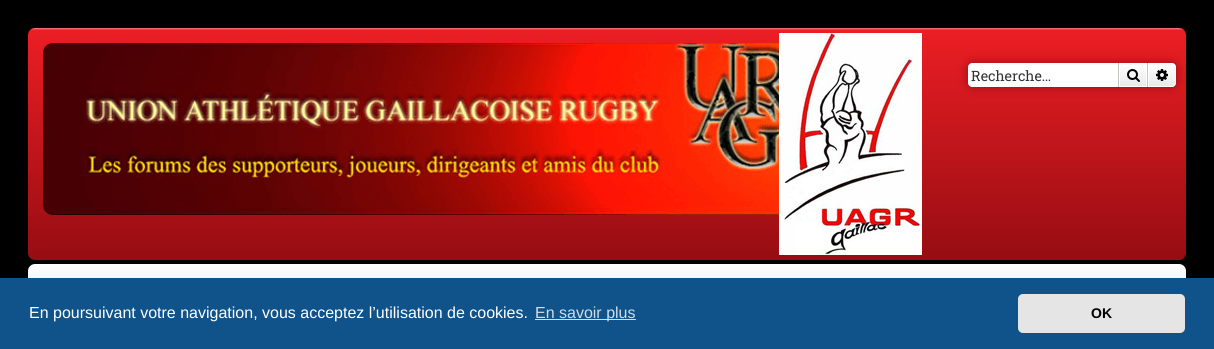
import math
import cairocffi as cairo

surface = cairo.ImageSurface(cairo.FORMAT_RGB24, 1214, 349)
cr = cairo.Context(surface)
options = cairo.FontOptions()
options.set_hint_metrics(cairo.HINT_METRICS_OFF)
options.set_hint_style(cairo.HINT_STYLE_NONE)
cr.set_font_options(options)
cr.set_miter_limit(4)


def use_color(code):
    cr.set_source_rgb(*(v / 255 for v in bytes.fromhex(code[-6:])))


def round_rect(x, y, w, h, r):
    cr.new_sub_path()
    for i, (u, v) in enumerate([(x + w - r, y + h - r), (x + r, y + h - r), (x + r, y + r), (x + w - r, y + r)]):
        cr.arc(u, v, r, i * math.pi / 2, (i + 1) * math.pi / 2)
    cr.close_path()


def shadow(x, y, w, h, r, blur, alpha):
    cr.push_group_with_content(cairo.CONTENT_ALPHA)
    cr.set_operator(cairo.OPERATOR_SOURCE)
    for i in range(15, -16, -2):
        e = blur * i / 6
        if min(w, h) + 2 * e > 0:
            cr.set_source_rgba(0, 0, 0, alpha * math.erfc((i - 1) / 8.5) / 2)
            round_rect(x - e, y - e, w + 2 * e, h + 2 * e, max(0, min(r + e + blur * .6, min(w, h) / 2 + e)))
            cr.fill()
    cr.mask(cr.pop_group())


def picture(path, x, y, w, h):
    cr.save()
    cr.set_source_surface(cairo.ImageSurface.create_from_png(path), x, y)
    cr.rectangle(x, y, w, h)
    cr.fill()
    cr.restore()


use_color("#000000")
cr.paint()
gradient = cairo.LinearGradient(607, 28, 607, 260)
gradient.add_color_stop_rgba(0, 0.957, 0.486, 0.502, 1)
gradient.add_color_stop_rgba(0.01, 0.922, 0.118, 0.141, 1)
gradient.add_color_stop_rgba(1, 0.588, 0.051, 0.071, 1)
cr.set_source(gradient)
round_rect(28, 28, 1158, 232, 7)
cr.fill()
picture("img1.png", 43, 43, 736, 172)
picture("img2.png", 779, 33, 143, 222)
use_color("#960d12")
shadow(968, 63, 208, 24, 4, 5, 1)
use_color("#ffffff")
cr.new_path()
cr.move_to(972, 63)
cr.line_to(1118, 63)
cr.line_to(1118, 87)
cr.line_to(972, 87)
cr.curve_to(970, 87, 968, 85, 968, 83)
cr.line_to(968, 67)
cr.curve_to(968, 65, 970, 63, 972, 63)
cr.close_path()
cr.fill()
cr.select_font_face("Roboto Slab")
cr.set_font_size(14.25)
use_color("#333333")
cr.move_to(971, 81)
cr.show_text("Recherche…")
gradient = cairo.LinearGradient(1133, 63, 1133, 87)
gradient.add_color_stop_rgba(0, 1, 1, 1, 1)
gradient.add_color_stop_rgba(1, 0.914, 0.914, 0.914, 1)
cr.set_source(gradient)
cr.rectangle(1120, 64, 26, 22)
cr.fill()
cr.rectangle(1119.5, 63.5, 27, 23)
use_color("#ffffff")
cr.set_line_width(1)
cr.stroke()
use_color("#c7c3bf")
cr.rectangle(1147, 63, 1, 24)
cr.fill()
cr.rectangle(1118, 63, 1, 24)
cr.fill()
picture("img3.png", 1127, 69, 13, 13)
gradient = cairo.LinearGradient(1162, 63, 1162, 87)
gradient.add_color_stop_rgba(0, 1, 1, 1, 1)
gradient.add_color_stop_rgba(1, 0.914, 0.914, 0.914, 1)
cr.set_source(gradient)
cr.new_path()
cr.move_to(1148.5, 63.5)
cr.line_to(1172, 63.5)
cr.curve_to(1174, 63.5, 1175.5, 65, 1175.5, 67)
cr.line_to(1175.5, 83)
cr.curve_to(1175.5, 85, 1174, 86.5, 1172, 86.5)
cr.line_to(1148.5, 86.5)
cr.close_path()
cr.fill_preserve()
use_color("#ffffff")
cr.stroke()
picture("img4.png", 1156, 69, 12, 12)
gradient = cairo.LinearGradient(607, 264, 607, 344)
gradient.add_color_stop_rgba(0, 0.996, 0.996, 0.996, 1)
gradient.add_color_stop_rgba(1, 0.839, 0.843, 0.851, 1)
cr.set_source(gradient)
round_rect(28, 264, 1158, 80, 7)
cr.fill()
use_color("#0f538a")
cr.rectangle(0, 278, 1214, 71)
cr.fill()
cr.select_font_face("Liberation Sans")
cr.set_font_size(16)
use_color("#ffffff")
cr.move_to(29, 318)
cr.show_text("En poursuivant votre navigation, vous acceptez l’utilisation de cookies.")
use_color("#cfdde8")
cr.rectangle(535, 319, 101, 1)
cr.fill()
cr.move_to(535, 318)
cr.show_text("En savoir plus")
use_color("#e5e5e5")
round_rect(1018, 294, 167, 39, 5)
cr.fill()
cr.select_font_face("Liberation Sans", cairo.FONT_SLANT_NORMAL, cairo.FONT_WEIGHT_BOLD)
cr.set_font_size(14)
use_color("#000000")
cr.move_to(1091, 318)
cr.show_text("OK")
surface.write_to_png("result.png")
